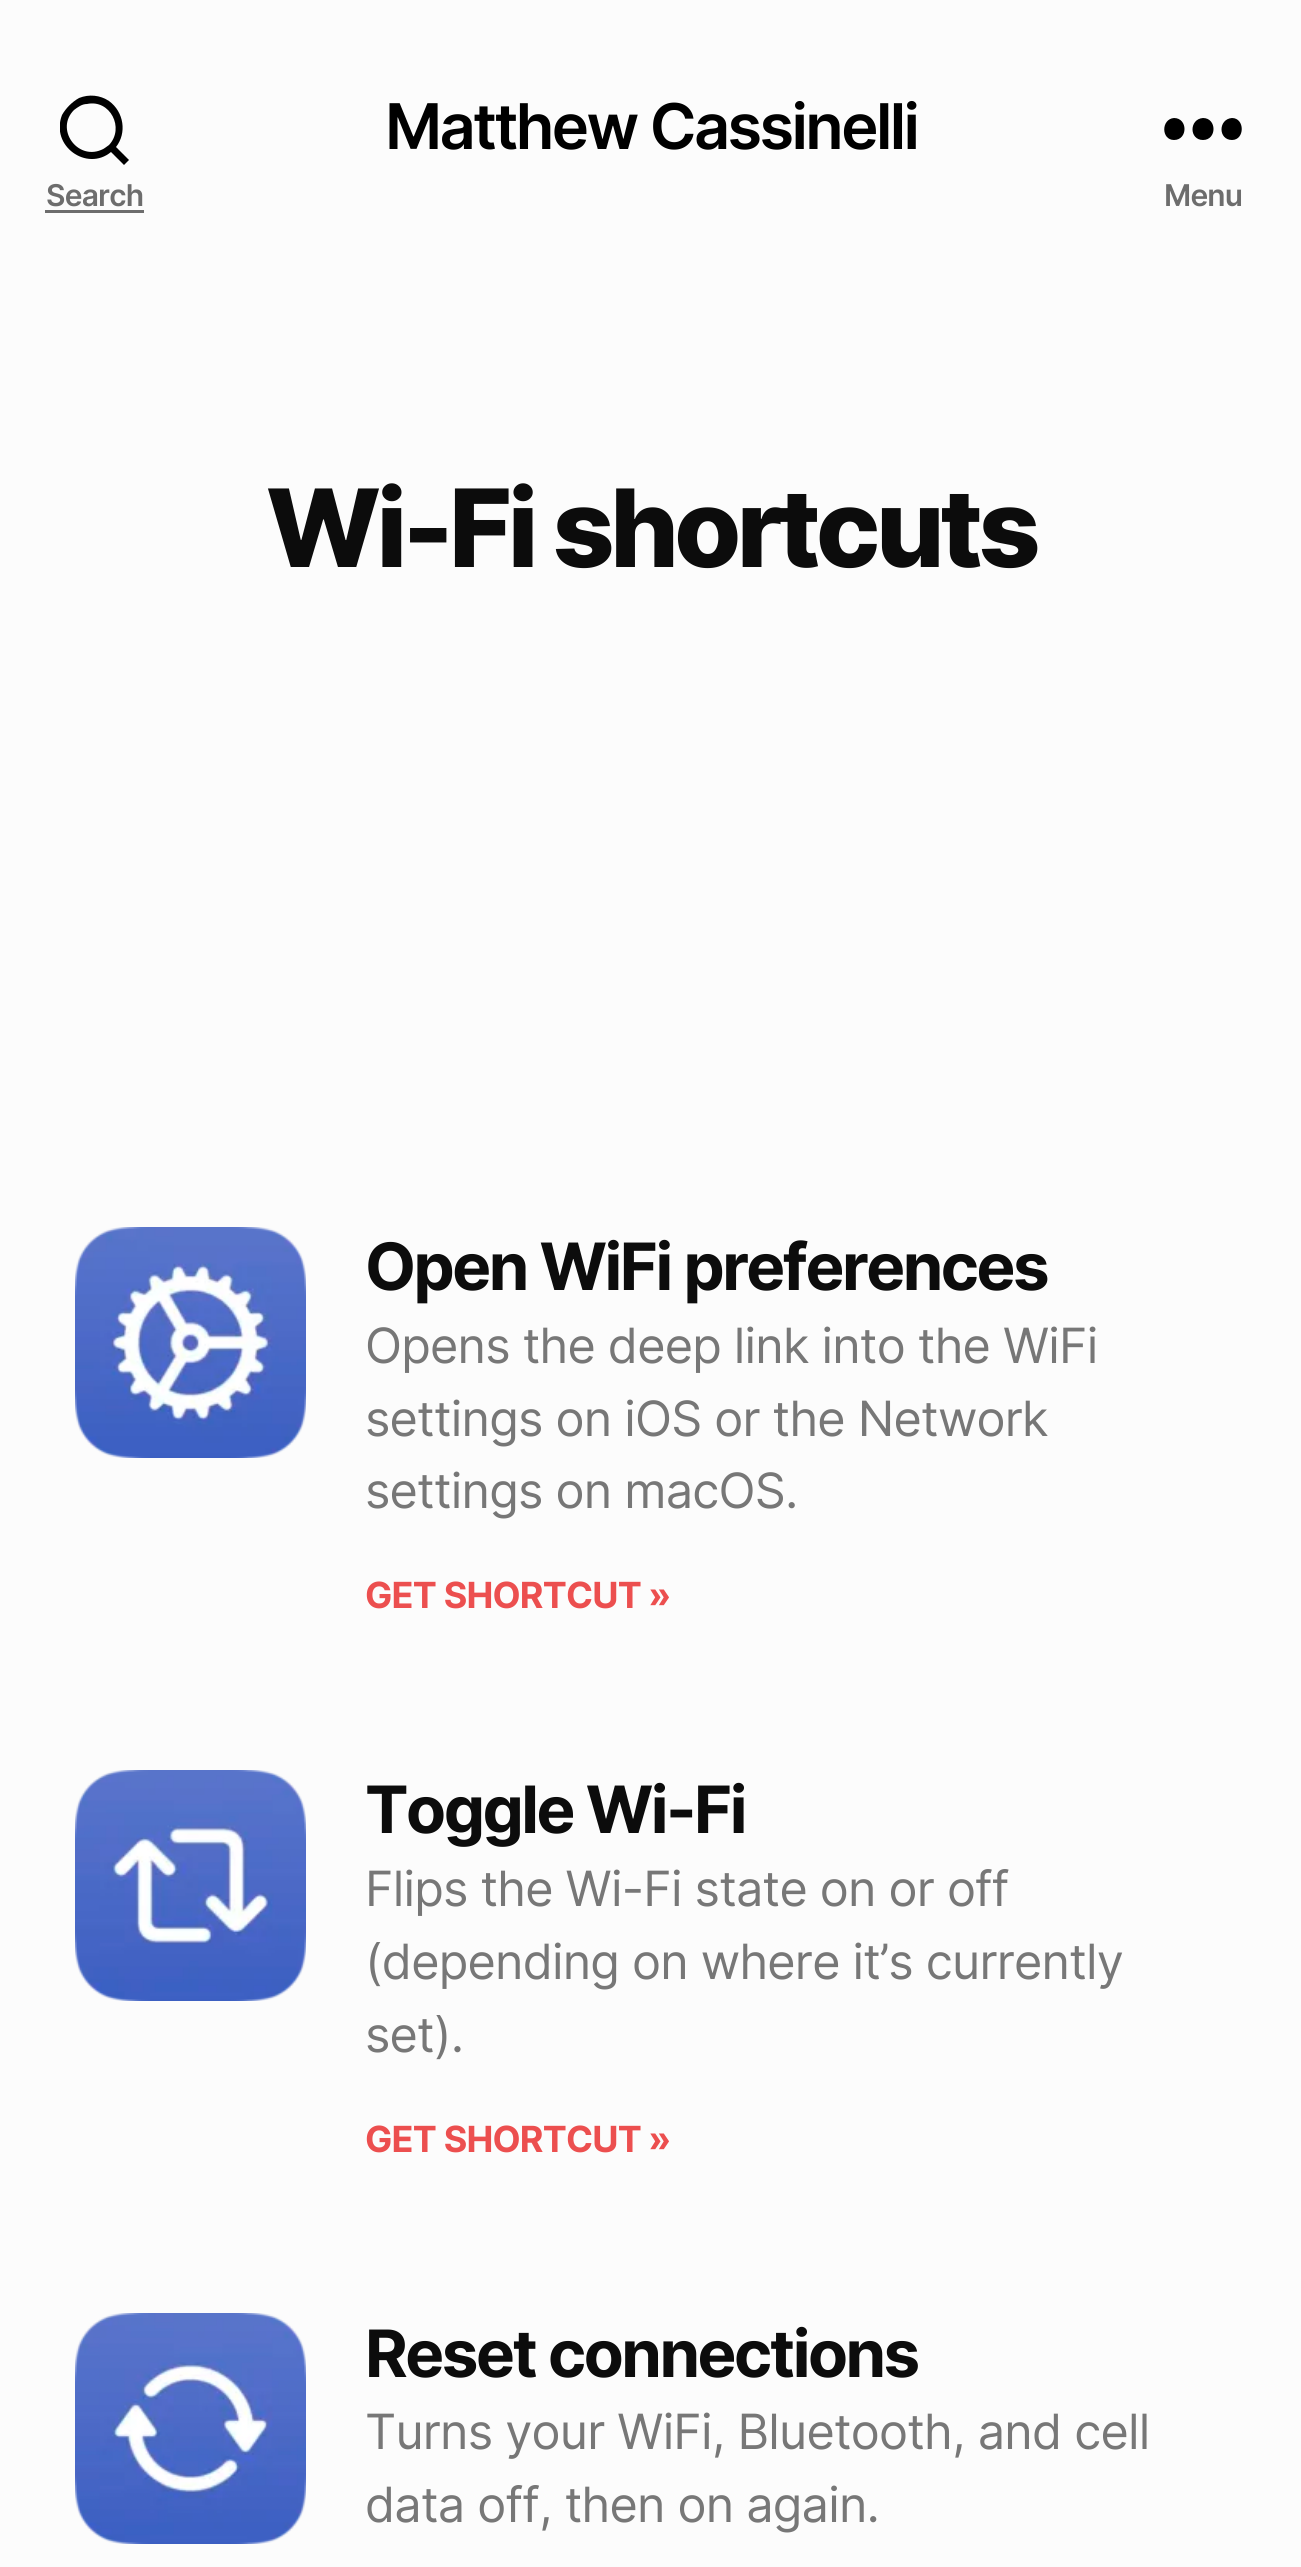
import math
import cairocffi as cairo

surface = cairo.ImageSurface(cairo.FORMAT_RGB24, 1301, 2567)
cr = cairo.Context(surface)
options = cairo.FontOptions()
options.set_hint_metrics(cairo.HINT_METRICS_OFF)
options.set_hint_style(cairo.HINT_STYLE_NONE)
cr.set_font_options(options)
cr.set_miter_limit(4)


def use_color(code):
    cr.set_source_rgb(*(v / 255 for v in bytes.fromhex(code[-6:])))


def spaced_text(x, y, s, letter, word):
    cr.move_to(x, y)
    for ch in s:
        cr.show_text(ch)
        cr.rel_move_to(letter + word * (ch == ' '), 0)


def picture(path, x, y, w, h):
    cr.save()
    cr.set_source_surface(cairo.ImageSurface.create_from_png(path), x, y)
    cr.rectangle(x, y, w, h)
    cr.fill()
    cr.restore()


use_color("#fcfcfc")
cr.paint()
cr.select_font_face("Inter SemiBold")
cr.set_font_size(63)
use_color("#000000")
spaced_text(385, 149, "Matthew Cassinelli", -2.6, 0)
cr.save()
cr.rectangle(60, 93, 69, 75)
cr.clip()
cr.new_path()
cr.move_to(116, 147)
cr.line_to(129, 160)
cr.line_to(124, 165)
cr.line_to(111, 152)
cr.curve_to(87, 172, 50, 146, 62, 115)
cr.curve_to(66, 108, 72, 102, 79, 98)
cr.curve_to(89, 94, 100, 95, 109, 101)
cr.curve_to(124, 112, 127, 133, 116, 147)
cr.close_path()
cr.move_to(109, 145)
cr.curve_to(125, 128, 110, 99, 87, 104)
cr.curve_to(82, 104, 78, 107, 74, 110)
cr.curve_to(55, 129, 77, 160, 101, 150)
cr.curve_to(104, 149, 106, 147, 109, 145)
cr.close_path()
cr.fill()
cr.restore()
cr.set_font_size(30)
use_color("#6d6d6d")
spaced_text(46, 206, "Search", -0.8, 0)
cr.rectangle(45, 210, 99, 3)
cr.fill()
use_color("#000000")
cr.set_fill_rule(cairo.FILL_RULE_EVEN_ODD)
cr.new_path()
cr.move_to(1174, 140)
cr.curve_to(1161, 140, 1161, 119, 1174, 118)
cr.curve_to(1188, 118, 1188, 140, 1174, 140)
cr.close_path()
cr.move_to(1203, 140)
cr.curve_to(1189, 140, 1189, 119, 1203, 118)
cr.curve_to(1217, 118, 1217, 140, 1203, 140)
cr.close_path()
cr.move_to(1232, 140)
cr.curve_to(1218, 140, 1218, 119, 1232, 118)
cr.curve_to(1245, 118, 1245, 140, 1232, 140)
cr.close_path()
cr.fill()
use_color("#6d6d6d")
spaced_text(1164, 206, "Menu", -0.8, 0)
cr.select_font_face("Inter ExtraBold")
cr.set_font_size(108)
use_color("#0c0c0c")
spaced_text(266, 567, "Wi-Fi shortcuts", -4.5, 0)
picture("img1.png", 75, 1227, 231, 231)
cr.select_font_face("Inter", cairo.FONT_SLANT_NORMAL, cairo.FONT_WEIGHT_BOLD)
cr.set_font_size(65.25)
spaced_text(365, 1290, "Open WiFi preferences", -2.5, 0)
cr.select_font_face("Inter")
cr.set_font_size(48.6)
use_color("#777777")
spaced_text(365, 1363, "Opens the deep link into the WiFi", -0.8, 0)
spaced_text(365, 1436, "settings on iOS or the Network", -0.8, 0)
spaced_text(365, 1508, "settings on macOS.", -0.8, 0)
cr.select_font_face("Inter", cairo.FONT_SLANT_NORMAL, cairo.FONT_WEIGHT_BOLD)
cr.set_font_size(36)
use_color("#ec4f4f")
spaced_text(365, 1608, "GET SHORTCUT »", -0.8, 0)
picture("img2.png", 75, 1770, 231, 231)
cr.set_font_size(65.25)
use_color("#0c0c0c")
spaced_text(365, 1833, "Toggle Wi-Fi", -2.5, 0)
cr.select_font_face("Inter")
cr.set_font_size(48.6)
use_color("#777777")
spaced_text(365, 1906, "Flips the Wi-Fi state on or off", -0.8, 0)
spaced_text(365, 1979, "(depending on where it’s currently", -0.8, 0)
spaced_text(365, 2052, "set).", -0.8, 0)
cr.select_font_face("Inter", cairo.FONT_SLANT_NORMAL, cairo.FONT_WEIGHT_BOLD)
cr.set_font_size(36)
use_color("#ec4f4f")
spaced_text(365, 2152, "GET SHORTCUT »", -0.8, 0)
picture("img3.png", 75, 2313, 231, 231)
cr.set_font_size(65.25)
use_color("#0c0c0c")
spaced_text(365, 2377, "Reset connections", -2.5, 0)
cr.select_font_face("Inter")
cr.set_font_size(48.6)
use_color("#777777")
spaced_text(365, 2449, "Turns your WiFi, Bluetooth, and cell", -0.8, 0)
spaced_text(365, 2522, "data off, then on again.", -0.8, 0)
surface.write_to_png("result.png")
